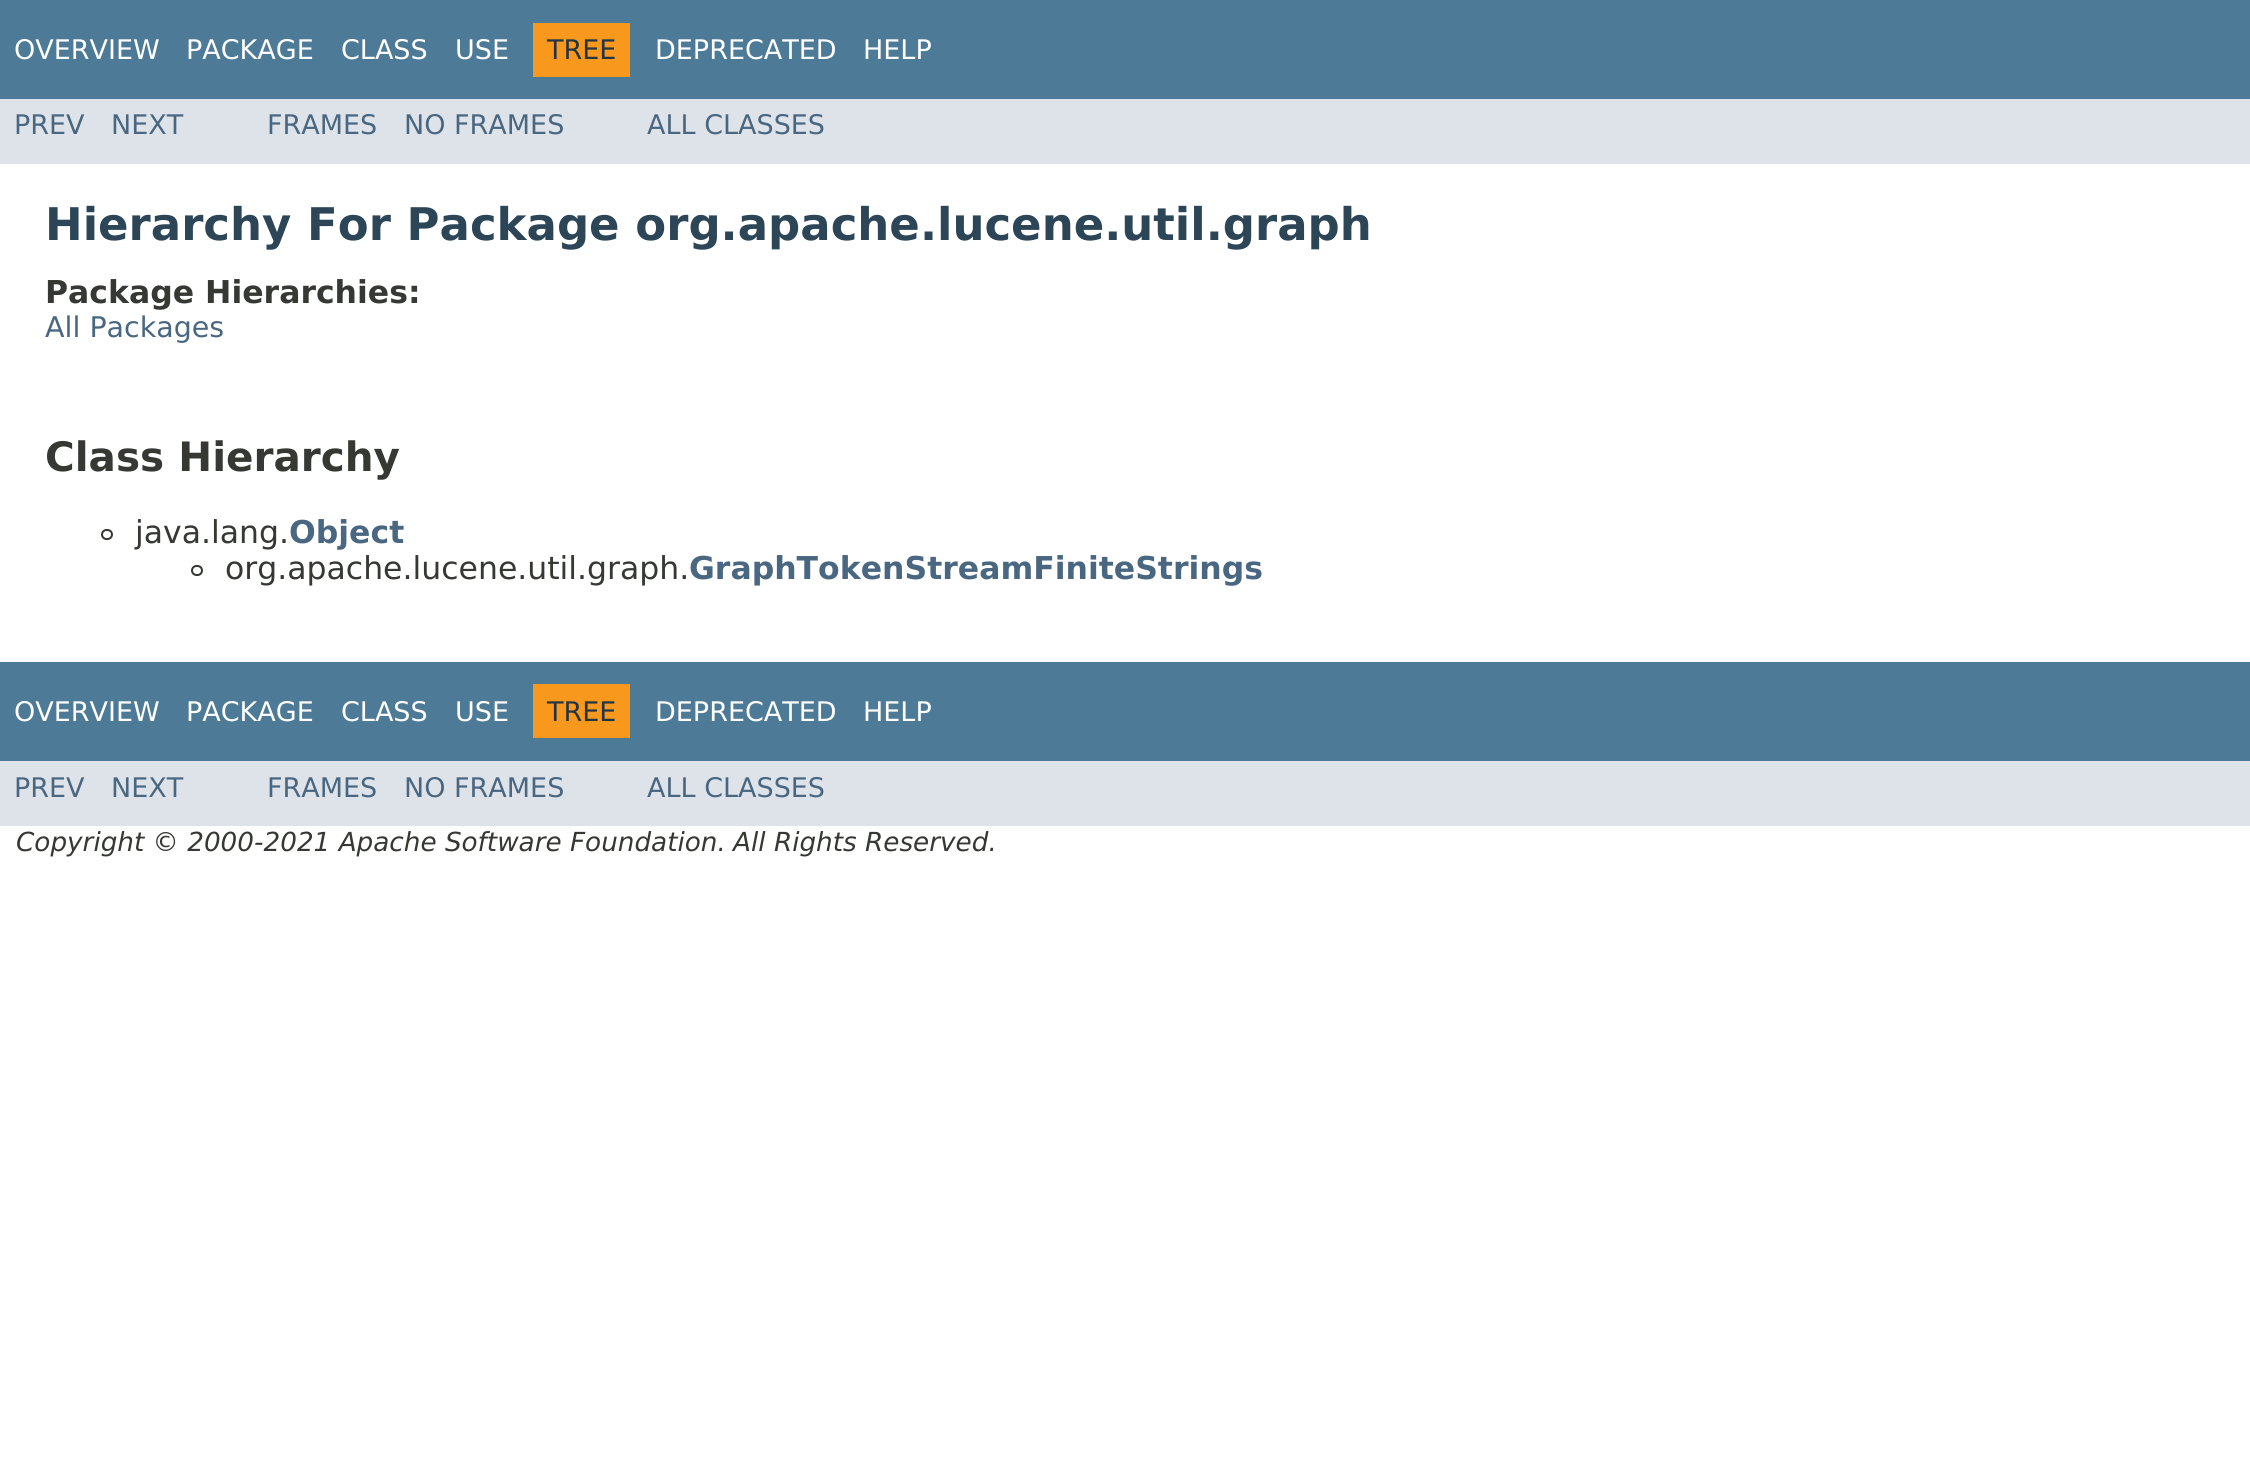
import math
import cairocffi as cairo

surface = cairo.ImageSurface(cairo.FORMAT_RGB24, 2250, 1458)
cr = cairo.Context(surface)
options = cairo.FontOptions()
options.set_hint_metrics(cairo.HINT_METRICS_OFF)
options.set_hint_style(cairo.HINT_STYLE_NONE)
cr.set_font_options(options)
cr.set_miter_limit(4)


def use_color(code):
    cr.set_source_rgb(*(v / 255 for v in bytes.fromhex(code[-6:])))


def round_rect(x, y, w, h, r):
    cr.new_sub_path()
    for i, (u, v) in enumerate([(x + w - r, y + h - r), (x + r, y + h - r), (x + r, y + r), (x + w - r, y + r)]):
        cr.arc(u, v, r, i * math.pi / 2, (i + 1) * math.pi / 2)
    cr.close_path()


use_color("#ffffff")
cr.paint()
use_color("#4d7a97")
cr.rectangle(0, 0, 2250, 99)
cr.fill()
cr.select_font_face("DejaVu Sans")
cr.set_font_size(27)
use_color("#ffffff")
cr.move_to(14, 59)
cr.show_text("OVERVIEW")
cr.move_to(186, 59)
cr.show_text("PACKAGE")
cr.move_to(341, 59)
cr.show_text("CLASS")
cr.move_to(455, 59)
cr.show_text("USE")
use_color("#f8981d")
cr.rectangle(533, 23, 97, 54)
cr.fill()
use_color("#253441")
cr.move_to(547, 59)
cr.show_text("TREE")
use_color("#ffffff")
cr.move_to(655, 59)
cr.show_text("DEPRECATED")
cr.move_to(863, 59)
cr.show_text("HELP")
use_color("#dee3e9")
cr.rectangle(0, 99, 2250, 65)
cr.fill()
use_color("#4a6782")
cr.move_to(14, 134)
cr.show_text("PREV")
cr.move_to(111, 134)
cr.show_text("NEXT")
cr.move_to(267, 134)
cr.show_text("FRAMES")
cr.move_to(404, 134)
cr.show_text("NO FRAMES")
cr.move_to(647, 134)
cr.show_text("ALL CLASSES")
cr.select_font_face("DejaVu Sans", cairo.FONT_SLANT_NORMAL, cairo.FONT_WEIGHT_BOLD)
cr.set_font_size(45)
use_color("#2c4557")
cr.move_to(45, 240)
cr.show_text("Hierarchy For Package org.apache.lucene.util.graph")
cr.set_font_size(31.5)
use_color("#353833")
cr.move_to(45, 303)
cr.show_text("Package Hierarchies:")
cr.select_font_face("DejaVu Sans")
cr.set_font_size(28.5)
use_color("#4a6782")
cr.move_to(45, 337)
cr.show_text("All Packages")
cr.select_font_face("DejaVu Sans", cairo.FONT_SLANT_NORMAL, cairo.FONT_WEIGHT_BOLD)
cr.set_font_size(40.5)
use_color("#353833")
cr.move_to(45, 471)
cr.show_text("Class Hierarchy")
round_rect(102, 530, 10, 9, 4.5)
cr.stroke()
cr.select_font_face("DejaVu Sans")
cr.set_font_size(31.5)
cr.move_to(135, 543)
cr.show_text("java.lang.")
cr.select_font_face("DejaVu Sans", cairo.FONT_SLANT_NORMAL, cairo.FONT_WEIGHT_BOLD)
use_color("#4a6782")
cr.move_to(289, 543)
cr.show_text("Object")
round_rect(192, 566, 10, 9, 4.5)
use_color("#353833")
cr.stroke()
cr.select_font_face("DejaVu Sans")
cr.move_to(225, 579)
cr.show_text("org.apache.lucene.util.graph.")
cr.select_font_face("DejaVu Sans", cairo.FONT_SLANT_NORMAL, cairo.FONT_WEIGHT_BOLD)
use_color("#4a6782")
cr.move_to(689, 579)
cr.show_text("GraphTokenStreamFiniteStrings")
use_color("#4d7a97")
cr.rectangle(0, 662, 2250, 99)
cr.fill()
cr.select_font_face("DejaVu Sans")
cr.set_font_size(27)
use_color("#ffffff")
cr.move_to(14, 721)
cr.show_text("OVERVIEW")
cr.move_to(186, 721)
cr.show_text("PACKAGE")
cr.move_to(341, 721)
cr.show_text("CLASS")
cr.move_to(455, 721)
cr.show_text("USE")
use_color("#f8981d")
cr.rectangle(533, 684, 97, 54)
cr.fill()
use_color("#253441")
cr.move_to(547, 721)
cr.show_text("TREE")
use_color("#ffffff")
cr.move_to(655, 721)
cr.show_text("DEPRECATED")
cr.move_to(863, 721)
cr.show_text("HELP")
use_color("#dee3e9")
cr.rectangle(0, 761, 2250, 65)
cr.fill()
use_color("#4a6782")
cr.move_to(14, 797)
cr.show_text("PREV")
cr.move_to(111, 797)
cr.show_text("NEXT")
cr.move_to(267, 797)
cr.show_text("FRAMES")
cr.move_to(404, 797)
cr.show_text("NO FRAMES")
cr.move_to(647, 797)
cr.show_text("ALL CLASSES")
cr.select_font_face("DejaVu Sans", cairo.FONT_SLANT_ITALIC)
cr.set_font_size(26.25)
use_color("#353833")
cr.move_to(16, 851)
cr.show_text("Copyright © 2000-2021 Apache Software Foundation.")
cr.move_to(733, 851)
cr.show_text("All Rights Reserved.")
surface.write_to_png("result.png")
